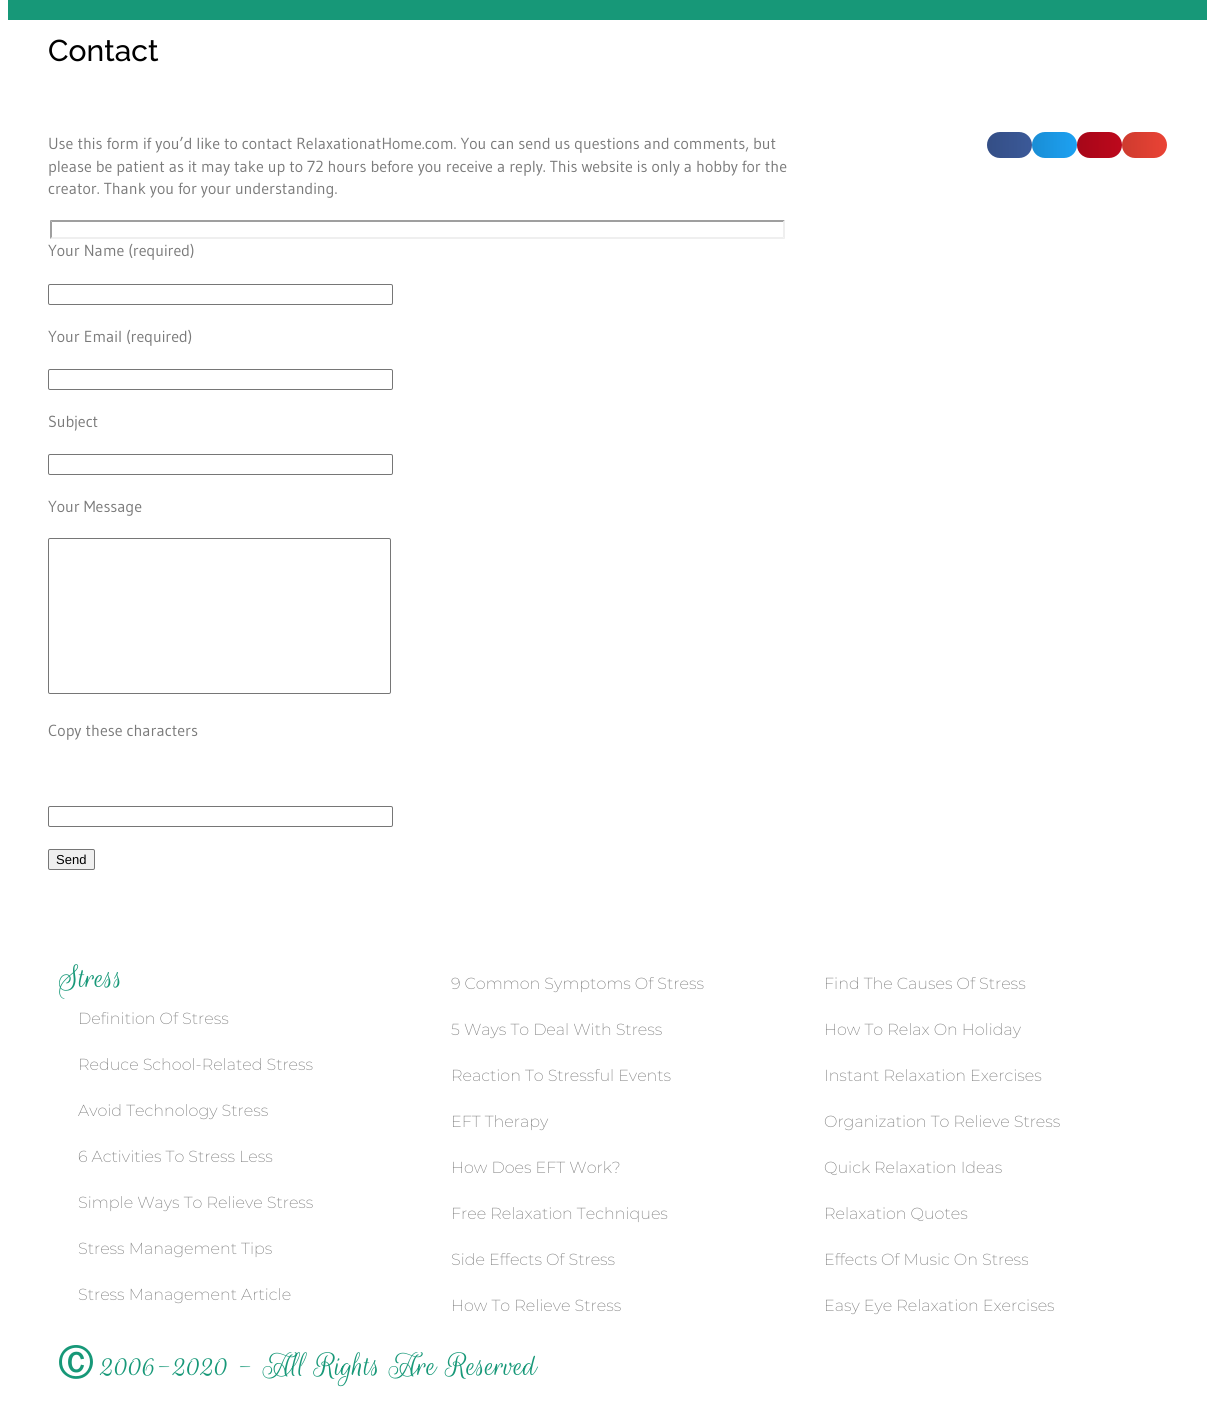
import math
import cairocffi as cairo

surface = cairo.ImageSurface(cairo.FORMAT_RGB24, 1215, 1412)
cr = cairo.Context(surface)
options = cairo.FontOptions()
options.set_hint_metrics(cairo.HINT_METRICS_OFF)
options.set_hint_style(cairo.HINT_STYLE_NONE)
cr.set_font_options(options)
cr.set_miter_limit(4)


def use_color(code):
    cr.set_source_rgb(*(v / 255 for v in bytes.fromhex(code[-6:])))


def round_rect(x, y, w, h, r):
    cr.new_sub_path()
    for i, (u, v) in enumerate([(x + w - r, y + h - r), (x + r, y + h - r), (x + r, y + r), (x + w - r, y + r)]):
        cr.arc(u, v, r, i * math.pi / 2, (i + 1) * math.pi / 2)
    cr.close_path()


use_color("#ffffff")
cr.paint()
use_color("#179878")
cr.rectangle(8, 0, 1199, 20)
cr.fill()
cr.select_font_face("Raleway Medium")
cr.set_font_size(30)
use_color("#000000")
cr.move_to(48, 61)
cr.show_text("Contact")
cr.select_font_face("Gudea")
cr.set_font_size(16)
use_color("#7a7a7a")
cr.move_to(48, 149)
cr.show_text("Use this form if you’d like to contact RelaxationatHome.com. You can send us questions and comments, but")
cr.move_to(48, 172)
cr.show_text("please be patient as it may take up to 72 hours before you receive a reply. This website is only a hobby for the")
cr.move_to(48, 194)
cr.show_text("creator. Thank you for your understanding.")
use_color("#9f9f9f")
cr.new_path()
cr.move_to(50, 220)
cr.line_to(785, 220)
cr.line_to(783, 222)
cr.line_to(52, 222)
cr.close_path()
cr.fill()
use_color("#efefef")
cr.new_path()
cr.move_to(785, 220)
cr.line_to(785, 239)
cr.line_to(783, 237)
cr.line_to(783, 222)
cr.close_path()
cr.fill()
cr.new_path()
cr.move_to(785, 239)
cr.line_to(50, 239)
cr.line_to(52, 237)
cr.line_to(783, 237)
cr.close_path()
cr.fill()
use_color("#9f9f9f")
cr.new_path()
cr.move_to(50, 239)
cr.line_to(50, 220)
cr.line_to(52, 222)
cr.line_to(52, 237)
cr.close_path()
cr.fill()
use_color("#7a7a7a")
cr.move_to(48, 256)
cr.show_text("Your Name (required)")
round_rect(48.5, 284.5, 344, 20, 1.5)
use_color("#767676")
cr.set_line_width(1)
cr.stroke()
use_color("#7a7a7a")
cr.move_to(48, 342)
cr.show_text("Your Email (required)")
round_rect(48.5, 369.5, 344, 20, 1.5)
use_color("#767676")
cr.stroke()
use_color("#7a7a7a")
cr.move_to(48, 427)
cr.show_text("Subject")
round_rect(48.5, 454.5, 344, 20, 1.5)
use_color("#767676")
cr.stroke()
use_color("#7a7a7a")
cr.move_to(48, 512)
cr.show_text("Your Message")
round_rect(48.5, 538.5, 342, 155, 1.5)
use_color("#767676")
cr.stroke()
use_color("#7a7a7a")
cr.move_to(48, 736)
cr.show_text("Copy these characters")
round_rect(48.5, 806.5, 344, 20, 1.5)
use_color("#767676")
cr.stroke()
use_color("#efefef")
round_rect(48.5, 849.5, 46, 20, 1.5)
cr.fill_preserve()
use_color("#767676")
cr.stroke()
cr.select_font_face("Liberation Sans")
cr.set_font_size(13)
use_color("#000000")
cr.move_to(56, 864)
cr.show_text("Send")
use_color("#3b5998")
round_rect(987, 132, 45, 26, 13)
cr.fill()
gradient = cairo.LinearGradient(987, 145, 1032, 145)
gradient.add_color_stop_rgba(0, 0, 0, 0, 0.12)
gradient.add_color_stop_rgba(1, 0, 0, 0, 0)
cr.set_source(gradient)
round_rect(987, 132, 45, 26, 13)
cr.fill()
use_color("#1da1f2")
round_rect(1032, 132, 45, 26, 13)
cr.fill()
gradient = cairo.LinearGradient(1032, 145, 1077, 145)
gradient.add_color_stop_rgba(0, 0, 0, 0, 0.12)
gradient.add_color_stop_rgba(1, 0, 0, 0, 0)
cr.set_source(gradient)
round_rect(1032, 132, 45, 26, 13)
cr.fill()
use_color("#bd081c")
round_rect(1077, 132, 45, 26, 13)
cr.fill()
gradient = cairo.LinearGradient(1077, 145, 1122, 145)
gradient.add_color_stop_rgba(0, 0, 0, 0, 0.12)
gradient.add_color_stop_rgba(1, 0, 0, 0, 0)
cr.set_source(gradient)
round_rect(1077, 132, 45, 26, 13)
cr.fill()
use_color("#ea4335")
round_rect(1122, 132, 45, 26, 13)
cr.fill()
gradient = cairo.LinearGradient(1122, 145, 1167, 145)
gradient.add_color_stop_rgba(0, 0, 0, 0, 0.12)
gradient.add_color_stop_rgba(1, 0, 0, 0, 0)
cr.set_source(gradient)
round_rect(1122, 132, 45, 26, 13)
cr.fill()
cr.select_font_face("Rouge Script")
cr.set_font_size(35)
use_color("#179878")
cr.move_to(58, 987)
cr.show_text("Stress")
cr.select_font_face("Montserrat ExtraLight")
cr.set_font_size(16)
use_color("#7a7a7a")
cr.move_to(78, 1024)
cr.show_text("Definition Of Stress")
cr.move_to(78, 1070)
cr.show_text("Reduce School-Related Stress")
cr.move_to(78, 1116)
cr.show_text("Avoid Technology Stress")
cr.move_to(78, 1162)
cr.show_text("6 Activities To Stress Less")
cr.move_to(78, 1208)
cr.show_text("Simple Ways To Relieve Stress")
cr.move_to(78, 1254)
cr.show_text("Stress Management Tips")
cr.move_to(78, 1300)
cr.show_text("Stress Management Article")
cr.move_to(451, 989)
cr.show_text("9 Common Symptoms Of Stress")
cr.move_to(451, 1035)
cr.show_text("5 Ways To Deal With Stress")
cr.move_to(451, 1081)
cr.show_text("Reaction To Stressful Events")
cr.move_to(451, 1127)
cr.show_text("EFT Therapy")
cr.move_to(451, 1173)
cr.show_text("How Does EFT Work?")
cr.move_to(451, 1219)
cr.show_text("Free Relaxation Techniques")
cr.move_to(451, 1265)
cr.show_text("Side Effects Of Stress")
cr.move_to(451, 1311)
cr.show_text("How To Relieve Stress")
cr.move_to(824, 989)
cr.show_text("Find The Causes Of Stress")
cr.move_to(824, 1035)
cr.show_text("How To Relax On Holiday")
cr.move_to(824, 1081)
cr.show_text("Instant Relaxation Exercises")
cr.move_to(824, 1127)
cr.show_text("Organization To Relieve Stress")
cr.move_to(824, 1173)
cr.show_text("Quick Relaxation Ideas")
cr.move_to(824, 1219)
cr.show_text("Relaxation Quotes")
cr.move_to(824, 1265)
cr.show_text("Effects Of Music On Stress")
cr.move_to(824, 1311)
cr.show_text("Easy Eye Relaxation Exercises")
cr.select_font_face("WenQuanYi Zen Hei", cairo.FONT_SLANT_NORMAL, cairo.FONT_WEIGHT_BOLD)
cr.set_font_size(35)
use_color("#179878")
cr.move_to(58, 1375)
cr.show_text("Ⓒ")
cr.select_font_face("Rouge Script")
cr.move_to(101, 1375)
cr.show_text("2006-2020 - All Rights Are Reserved")
surface.write_to_png("result.png")
